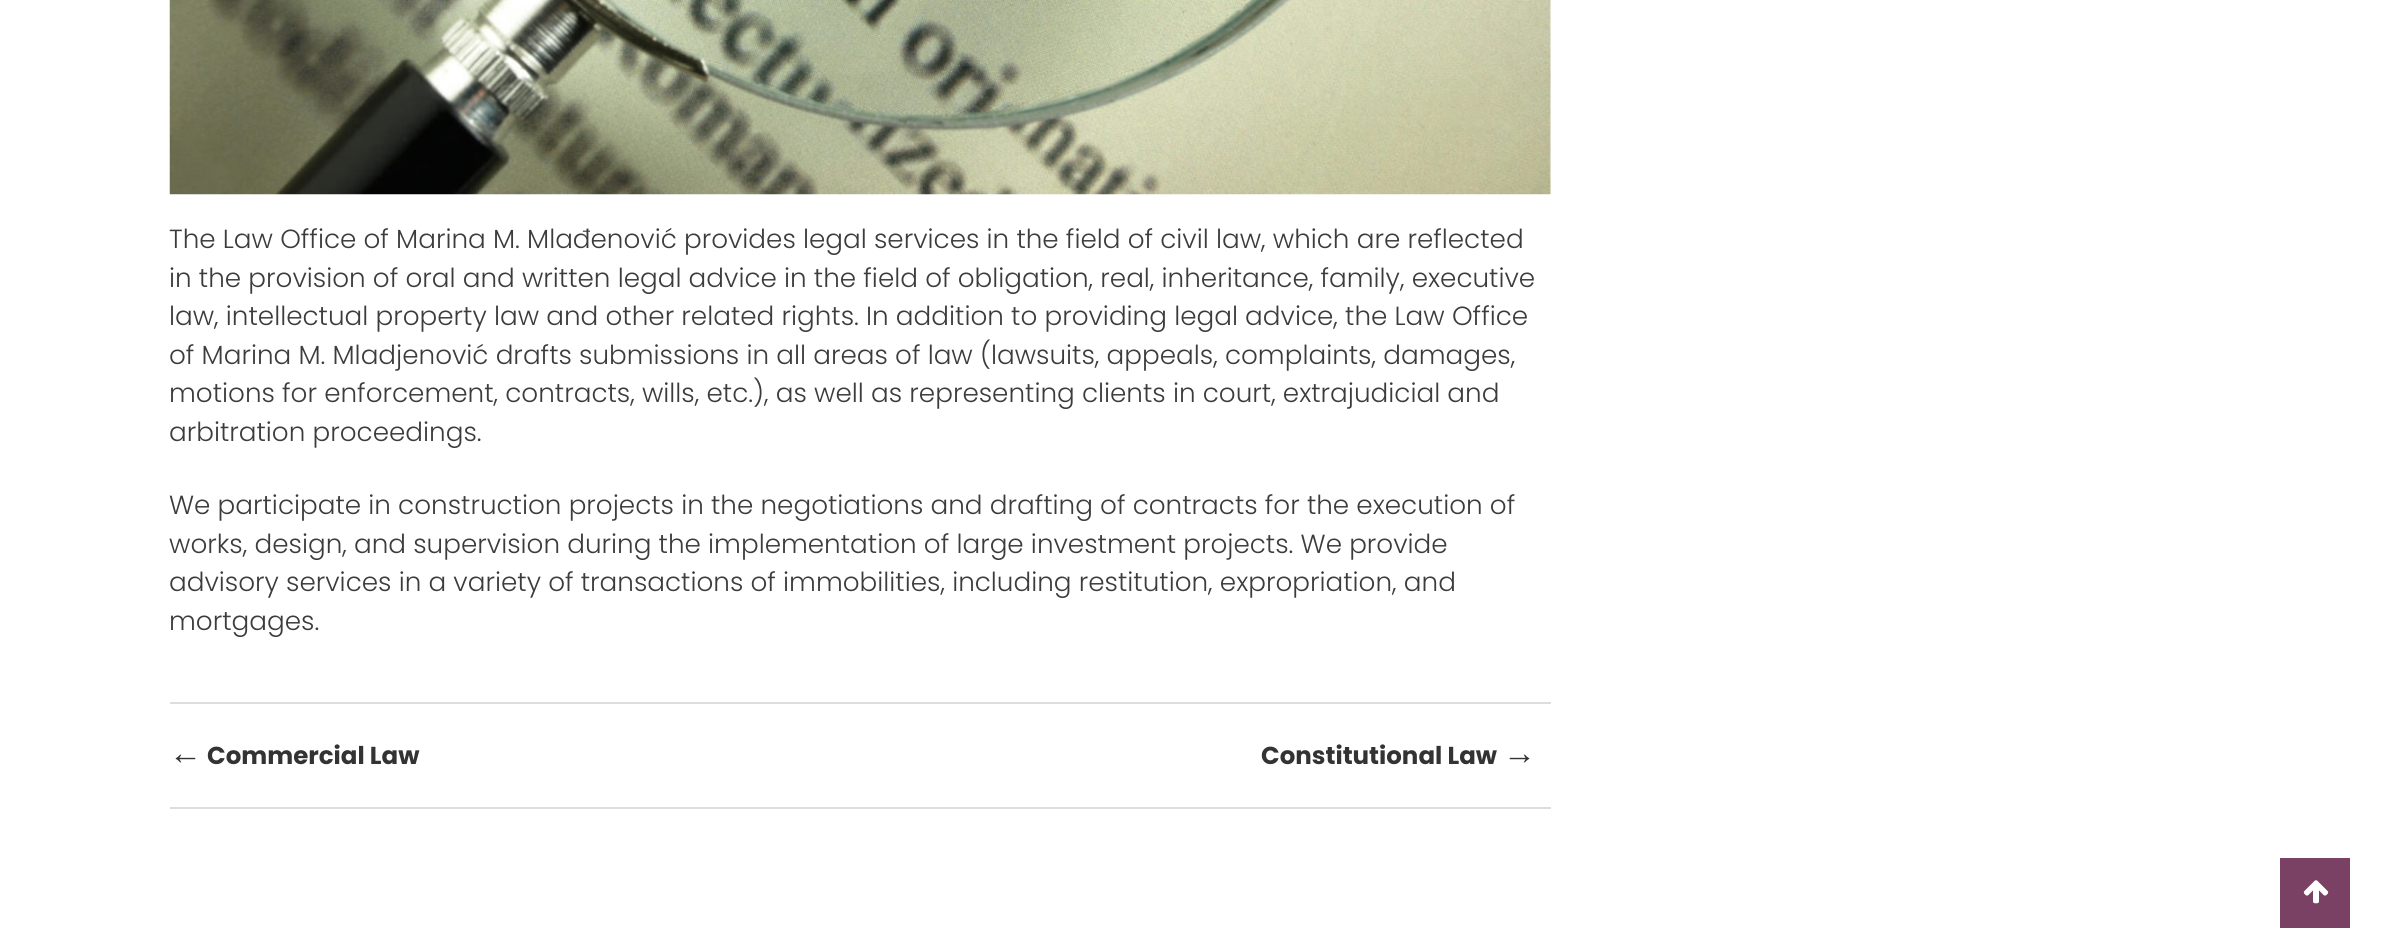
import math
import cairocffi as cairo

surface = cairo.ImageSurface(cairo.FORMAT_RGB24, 2385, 944)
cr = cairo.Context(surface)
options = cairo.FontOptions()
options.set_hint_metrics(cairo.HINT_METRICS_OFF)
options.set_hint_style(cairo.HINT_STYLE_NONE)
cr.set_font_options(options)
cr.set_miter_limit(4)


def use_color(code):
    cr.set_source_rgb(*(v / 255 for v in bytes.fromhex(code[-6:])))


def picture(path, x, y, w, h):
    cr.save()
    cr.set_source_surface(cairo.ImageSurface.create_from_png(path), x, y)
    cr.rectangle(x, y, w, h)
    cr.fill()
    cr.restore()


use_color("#ffffff")
cr.paint()
picture("img1.png", 169, 0, 1382, 195)
cr.select_font_face("Poppins Light")
cr.set_font_size(26.25)
use_color("#3c3c3c")
cr.move_to(169, 248)
cr.show_text("The Law Office of Marina M. Mlađenović provides legal services in the field of civil law, which are reflected")
cr.move_to(169, 287)
cr.show_text("in the provision of oral and written legal advice in the field of obligation, real, inheritance, family, executive")
cr.move_to(169, 325)
cr.show_text("law, intellectual property law and other related rights. In addition to providing legal advice, the Law Office")
cr.move_to(169, 364)
cr.show_text("of Marina M. Mladjenović drafts submissions in all areas of law (lawsuits, appeals, complaints, damages,")
cr.move_to(169, 402)
cr.show_text("motions for enforcement, contracts, wills, etc.), as well as representing clients in court, extrajudicial and")
cr.move_to(169, 441)
cr.show_text("arbitration proceedings.")
cr.move_to(169, 514)
cr.show_text("We participate in construction projects in the negotiations and drafting of contracts for the execution of")
cr.move_to(169, 553)
cr.show_text("works, design, and supervision during the implementation of large investment projects. We provide")
cr.move_to(169, 591)
cr.show_text("advisory services in a variety of transactions of immobilities, including restitution, expropriation, and")
cr.move_to(169, 630)
cr.show_text("mortgages.")
use_color("#dddddd")
cr.rectangle(170, 702, 1381, 2)
cr.fill()
cr.rectangle(170, 807, 1381, 2)
cr.fill()
cr.select_font_face("Liberation Sans", cairo.FONT_SLANT_NORMAL, cairo.FONT_WEIGHT_BOLD)
cr.set_font_size(33)
use_color("#333333")
cr.move_to(169, 764)
cr.show_text("←")
cr.select_font_face("Poppins", cairo.FONT_SLANT_NORMAL, cairo.FONT_WEIGHT_BOLD)
cr.set_font_size(24.5)
cr.move_to(207, 764)
cr.show_text("Commercial Law")
cr.move_to(1261, 764)
cr.show_text("Constitutional Law")
cr.select_font_face("Liberation Sans", cairo.FONT_SLANT_NORMAL, cairo.FONT_WEIGHT_BOLD)
cr.set_font_size(33)
cr.move_to(1503, 764)
cr.show_text("→")
use_color("#7b4165")
cr.rectangle(2280, 858, 70, 70)
cr.fill()
picture("img2.png", 2303, 880, 26, 24)
surface.write_to_png("result.png")
